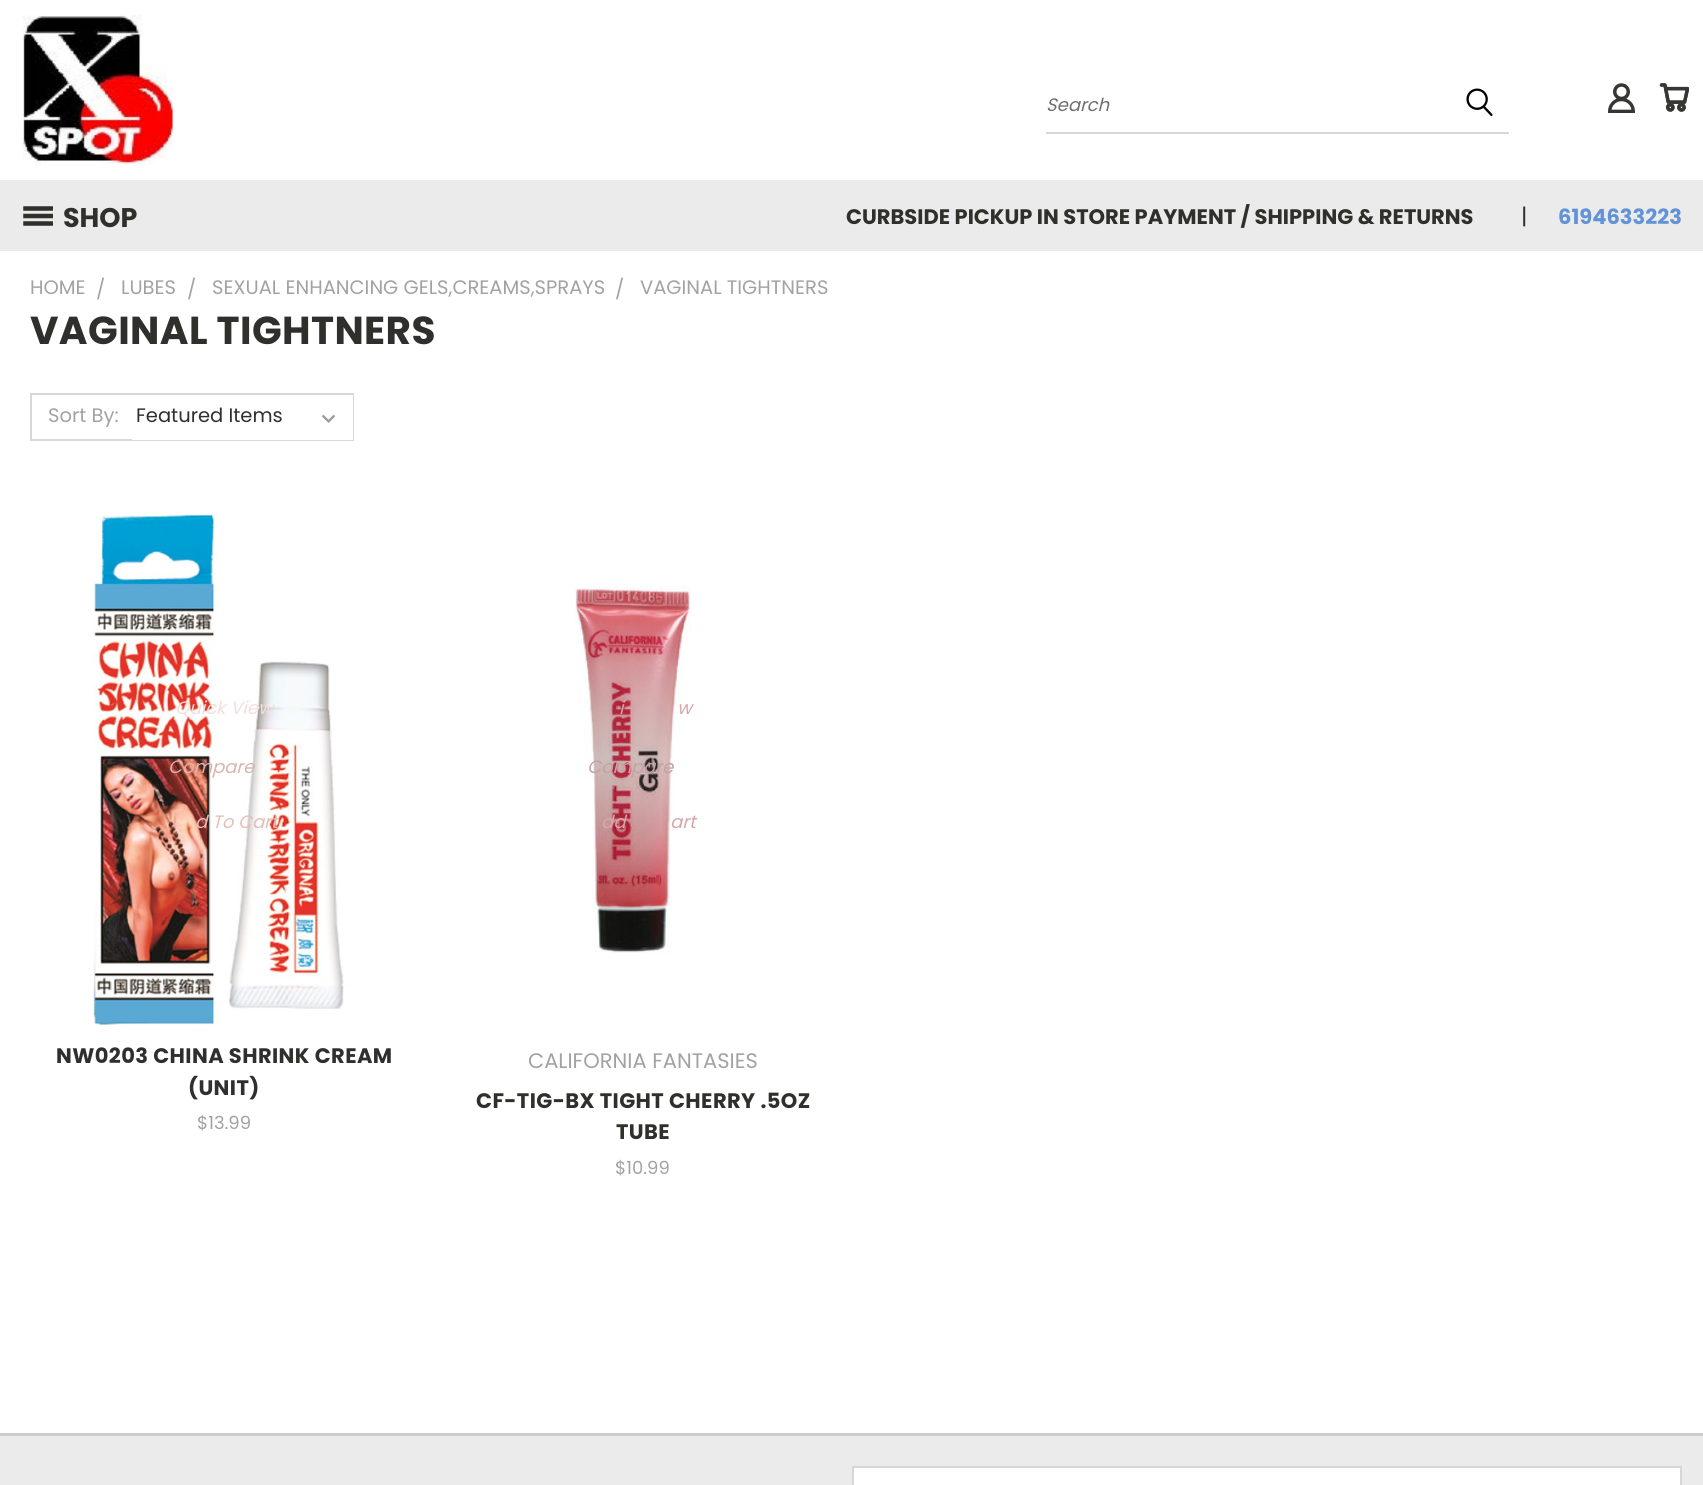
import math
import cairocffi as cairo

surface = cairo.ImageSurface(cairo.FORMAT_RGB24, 1703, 1485)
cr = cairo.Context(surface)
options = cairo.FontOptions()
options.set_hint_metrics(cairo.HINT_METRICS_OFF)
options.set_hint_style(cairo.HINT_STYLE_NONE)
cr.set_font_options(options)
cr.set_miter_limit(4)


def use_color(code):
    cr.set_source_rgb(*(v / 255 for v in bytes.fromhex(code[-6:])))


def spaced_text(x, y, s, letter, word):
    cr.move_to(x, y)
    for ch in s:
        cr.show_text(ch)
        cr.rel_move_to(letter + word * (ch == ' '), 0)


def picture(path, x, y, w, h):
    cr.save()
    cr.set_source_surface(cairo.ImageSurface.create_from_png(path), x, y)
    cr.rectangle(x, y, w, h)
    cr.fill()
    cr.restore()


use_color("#ffffff")
cr.paint()
picture("img1.png", 22, 15, 151, 150)
use_color("#d7d7d7")
cr.rectangle(1046, 132, 463, 2)
cr.fill()
cr.select_font_face("Poppins", cairo.FONT_SLANT_ITALIC)
cr.set_font_size(18)
use_color("#70706e")
cr.move_to(1046, 111)
cr.show_text("Search")
picture("img2.png", 1466, 88, 27, 29)
picture("img3.png", 1608, 83, 27, 30)
picture("img4.png", 1659, 83, 30, 29)
use_color("#ebebeb")
cr.rectangle(0, 180, 1703, 71)
cr.fill()
picture("img5.png", 23, 206, 30, 20)
cr.select_font_face("Poppins", cairo.FONT_SLANT_NORMAL, cairo.FONT_WEIGHT_BOLD)
cr.set_font_size(27)
use_color("#2f2f2b")
cr.move_to(63, 227)
cr.show_text("SHOP")
cr.set_font_size(21)
cr.move_to(846, 224)
cr.show_text("CURBSIDE PICKUP IN STORE PAYMENT / SHIPPING & RETURNS")
cr.select_font_face("Poppins")
cr.set_font_size(22)
cr.move_to(1521, 224)
cr.show_text("|")
cr.select_font_face("Poppins", cairo.FONT_SLANT_NORMAL, cairo.FONT_WEIGHT_BOLD)
cr.set_font_size(21)
use_color("#6293d6")
cr.move_to(1558, 224)
cr.show_text("6194633223")
cr.select_font_face("Poppins")
cr.set_font_size(19.5)
use_color("#a2a2a2")
cr.move_to(30, 294)
cr.show_text("HOME")
cr.move_to(96, 296)
cr.show_text("/")
cr.move_to(121, 294)
cr.show_text("LUBES")
cr.move_to(187, 296)
cr.show_text("/")
cr.move_to(212, 294)
cr.show_text("SEXUAL ENHANCING GELS,CREAMS,SPRAYS")
cr.move_to(615, 296)
cr.show_text("/")
cr.move_to(640, 294)
cr.show_text("VAGINAL TIGHTNERS")
cr.select_font_face("Poppins", cairo.FONT_SLANT_NORMAL, cairo.FONT_WEIGHT_BOLD)
cr.set_font_size(39)
use_color("#2f2f2b")
spaced_text(30, 344, "VAGINAL TIGHTNERS", 0.4, 0)
cr.rectangle(31, 394, 322, 46)
use_color("#d7d7d7")
cr.stroke()
cr.select_font_face("Poppins")
cr.set_font_size(19.5)
use_color("#a2a2a2")
cr.move_to(48, 422)
cr.show_text("Sort By:")
use_color("#ffffff")
cr.rectangle(132, 395, 221, 45)
cr.fill()
picture("img6.png", 321, 414, 15, 9)
use_color("#2f2f2b")
cr.move_to(136, 422)
cr.show_text("Featured Items")
picture("img7.png", 93, 514, 251, 511)
cr.select_font_face("Poppins", cairo.FONT_SLANT_ITALIC)
cr.set_font_size(18)
use_color("#f3dfdd")
cr.move_to(175, 714)
cr.show_text("Quick View")
use_color("#d7b6af")
cr.move_to(168, 773)
cr.show_text("Compare")
use_color("#e3bfb7")
cr.move_to(195, 828)
cr.show_text("d To Cart")
cr.select_font_face("Poppins", cairo.FONT_SLANT_NORMAL, cairo.FONT_WEIGHT_BOLD)
cr.set_font_size(21)
use_color("#2f2f2b")
spaced_text(56, 1063, "NW0203 CHINA SHRINK CREAM", 0.4, 0)
spaced_text(188, 1095, "(UNIT)", 0.4, 0)
cr.select_font_face("Poppins")
cr.set_font_size(18)
use_color("#a2a2a2")
cr.move_to(197, 1129)
cr.show_text("$13.99")
picture("img8.png", 575, 586, 117, 367)
cr.select_font_face("Poppins", cairo.FONT_SLANT_ITALIC)
use_color("#d6a6aa")
cr.move_to(619, 714)
cr.show_text("i")
cr.move_to(677, 714)
cr.show_text("w")
use_color("#c3a2a4")
cr.move_to(587, 773)
cr.show_text("Compare")
use_color("#d6a6aa")
cr.move_to(601, 828)
cr.show_text("dd")
cr.move_to(670, 828)
cr.show_text("art")
cr.select_font_face("Poppins")
cr.set_font_size(21)
use_color("#a2a2a2")
cr.move_to(528, 1068)
cr.show_text("CALIFORNIA FANTASIES")
cr.select_font_face("Poppins", cairo.FONT_SLANT_NORMAL, cairo.FONT_WEIGHT_BOLD)
use_color("#2f2f2b")
spaced_text(476, 1108, "CF-TIG-BX TIGHT CHERRY .5OZ", 0.4, 0)
spaced_text(616, 1139, "TUBE", 0.4, 0)
cr.select_font_face("Poppins")
cr.set_font_size(18)
use_color("#a2a2a2")
cr.move_to(615, 1174)
cr.show_text("$10.99")
use_color("#ebebeb")
cr.rectangle(0, 1436, 1703, 49)
cr.fill()
use_color("#cdcccc")
cr.rectangle(0, 1433, 1703, 3)
cr.fill()
use_color("#ffffff")
cr.rectangle(853, 1467, 828, 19)
cr.fill_preserve()
use_color("#d7d7d7")
cr.stroke()
surface.write_to_png("result.png")
